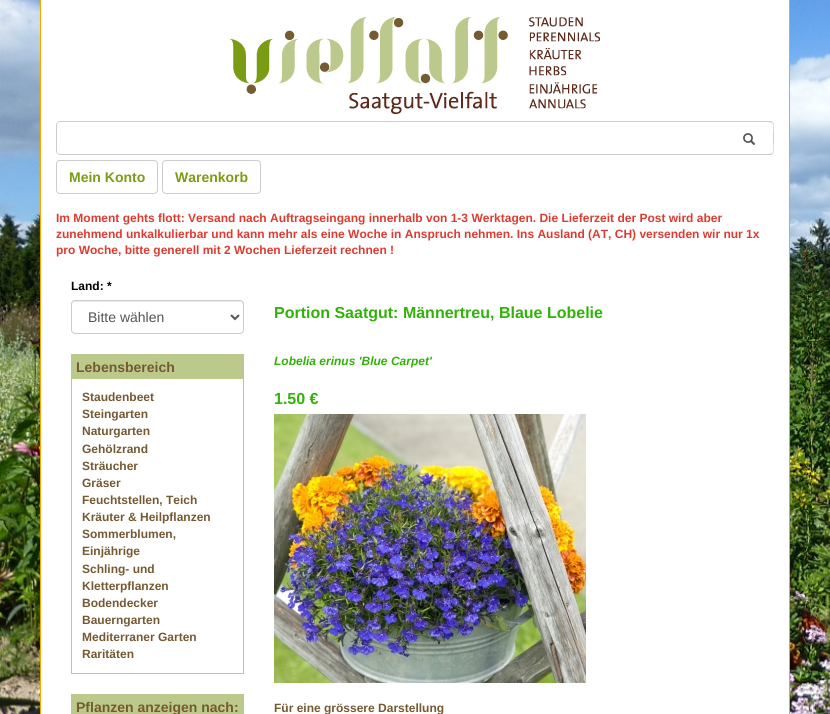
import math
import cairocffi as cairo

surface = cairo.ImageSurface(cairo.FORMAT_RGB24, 830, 714)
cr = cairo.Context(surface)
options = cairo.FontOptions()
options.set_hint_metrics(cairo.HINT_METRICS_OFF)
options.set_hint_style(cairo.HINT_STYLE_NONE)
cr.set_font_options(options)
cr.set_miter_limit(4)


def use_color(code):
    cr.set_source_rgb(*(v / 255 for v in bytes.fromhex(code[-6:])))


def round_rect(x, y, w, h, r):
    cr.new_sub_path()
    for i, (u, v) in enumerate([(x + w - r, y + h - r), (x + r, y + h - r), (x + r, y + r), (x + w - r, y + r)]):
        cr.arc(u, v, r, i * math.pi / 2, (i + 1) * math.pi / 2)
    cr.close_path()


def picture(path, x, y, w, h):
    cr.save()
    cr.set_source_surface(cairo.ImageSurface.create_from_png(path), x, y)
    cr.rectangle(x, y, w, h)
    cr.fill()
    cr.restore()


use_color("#ffffff")
cr.paint()
picture("img1.png", 0, 0, 830, 714)
use_color("#ffffff")
cr.rectangle(41, 0, 748, 714)
cr.fill()
use_color("#ffa500")
cr.rectangle(789, 0, 1, 714)
cr.fill()
cr.rectangle(40, 0, 1, 714)
cr.fill()
picture("img2.png", 228, 16, 372, 98)
use_color("#cccccc")
cr.set_fill_rule(cairo.FILL_RULE_EVEN_ODD)
cr.new_path()
cr.move_to(60, 121)
cr.line_to(725, 121)
cr.line_to(725, 155)
cr.line_to(60, 155)
cr.curve_to(58, 155, 56, 153, 56, 151)
cr.line_to(56, 125)
cr.curve_to(56, 123, 58, 121, 60, 121)
cr.close_path()
cr.move_to(60, 122)
cr.line_to(725, 122)
cr.line_to(725, 154)
cr.line_to(60, 154)
cr.curve_to(58, 154, 57, 153, 57, 151)
cr.line_to(57, 125)
cr.curve_to(57, 123, 58, 122, 60, 122)
cr.close_path()
cr.fill()
cr.new_path()
cr.move_to(725, 121)
cr.line_to(770, 121)
cr.curve_to(772, 121, 774, 123, 774, 125)
cr.line_to(774, 151)
cr.curve_to(774, 153, 772, 155, 770, 155)
cr.line_to(725, 155)
cr.close_path()
cr.move_to(725, 122)
cr.line_to(762, 122)
cr.curve_to(777, 122, 773, 122, 773, 138)
cr.curve_to(773, 154, 777, 154, 762, 154)
cr.line_to(725, 154)
cr.close_path()
cr.fill()
picture("img3.png", 743, 133, 12, 12)
round_rect(56.5, 160.5, 101, 33, 3.5)
cr.set_line_width(1)
cr.stroke()
cr.select_font_face("Liberation Sans", cairo.FONT_SLANT_NORMAL, cairo.FONT_WEIGHT_BOLD)
cr.set_font_size(14)
use_color("#7a9c13")
cr.move_to(69, 182)
cr.show_text("Mein Konto")
round_rect(162.5, 160.5, 98, 33, 3.5)
use_color("#cccccc")
cr.stroke()
use_color("#7a9c13")
cr.move_to(175, 182)
cr.show_text("Warenkorb")
cr.set_font_size(12)
use_color("#de3b30")
cr.move_to(56, 222)
cr.show_text("Im Moment gehts flott: Versand nach Auftragseingang innerhalb von 1-3 Werktagen. Die Lieferzeit der Post wird aber")
cr.move_to(56, 238)
cr.show_text("zunehmend unkalkulierbar und kann mehr als eine Woche in Anspruch nehmen. Ins Ausland (AT, CH) versenden wir nur 1x")
cr.move_to(56, 254)
cr.show_text("pro Woche, bitte generell mit 2 Wochen Lieferzeit rechnen !")
use_color("#000000")
cr.move_to(71, 290)
cr.show_text("Land: *")
use_color("#ececec")
cr.set_fill_rule(cairo.FILL_RULE_WINDING)
cr.new_path()
cr.move_to(75, 302)
cr.line_to(240, 302)
cr.curve_to(242, 302, 243, 303, 243, 305)
cr.line_to(243, 304)
cr.curve_to(243, 302, 242, 301, 240, 301)
cr.line_to(75, 301)
cr.curve_to(73, 301, 72, 302, 72, 304)
cr.line_to(72, 305)
cr.curve_to(72, 303, 73, 302, 75, 302)
cr.close_path()
cr.fill()
round_rect(71.5, 300.5, 172, 33, 3.5)
use_color("#cccccc")
cr.stroke()
cr.new_path()
cr.move_to(231, 315)
cr.line_to(235, 319)
cr.line_to(239, 315)
use_color("#555555")
cr.set_line_width(2)
cr.stroke()
cr.select_font_face("Liberation Sans")
cr.set_font_size(14)
cr.move_to(88, 322)
cr.show_text("Bitte wählen")
use_color("#bbca8b")
cr.rectangle(71, 354, 173, 24)
cr.fill()
cr.select_font_face("Liberation Sans", cairo.FONT_SLANT_NORMAL, cairo.FONT_WEIGHT_BOLD)
use_color("#755932")
cr.move_to(76, 372)
cr.show_text("Lebensbereich")
cr.rectangle(71.5, 378.5, 172, 295)
use_color("#bccb8a")
cr.set_line_width(1)
cr.stroke()
cr.set_font_size(12)
use_color("#755932")
cr.move_to(82, 401)
cr.show_text("Staudenbeet")
cr.move_to(82, 418)
cr.show_text("Steingarten")
cr.move_to(82, 435)
cr.show_text("Naturgarten")
cr.move_to(82, 453)
cr.show_text("Gehölzrand")
cr.move_to(82, 470)
cr.show_text("Sträucher")
cr.move_to(82, 487)
cr.show_text("Gräser")
cr.move_to(82, 504)
cr.show_text("Feuchtstellen, Teich")
cr.move_to(82, 521)
cr.show_text("Kräuter & Heilpflanzen")
cr.move_to(82, 538)
cr.show_text("Sommerblumen,")
cr.move_to(82, 555)
cr.show_text("Einjährige")
cr.move_to(82, 573)
cr.show_text("Schling- und")
cr.move_to(82, 590)
cr.show_text("Kletterpflanzen")
cr.move_to(82, 607)
cr.show_text("Bodendecker")
cr.move_to(82, 624)
cr.show_text("Bauerngarten")
cr.move_to(82, 641)
cr.show_text("Mediterraner Garten")
cr.move_to(82, 658)
cr.show_text("Raritäten")
use_color("#bbca8b")
cr.rectangle(71, 694, 173, 20)
cr.fill()
cr.set_font_size(14)
use_color("#755932")
cr.move_to(76, 712)
cr.show_text("Pflanzen anzeigen nach:")
cr.set_font_size(16)
use_color("#31b208")
cr.move_to(274, 318)
cr.show_text("Portion Saatgut: Männertreu, Blaue Lobelie")
cr.select_font_face("Liberation Sans", cairo.FONT_SLANT_ITALIC, cairo.FONT_WEIGHT_BOLD)
cr.set_font_size(12)
cr.move_to(274, 365)
cr.show_text("Lobelia erinus 'Blue Carpet'")
cr.select_font_face("Liberation Sans", cairo.FONT_SLANT_NORMAL, cairo.FONT_WEIGHT_BOLD)
cr.set_font_size(16)
cr.move_to(274, 404)
cr.show_text("1.50 €")
picture("img4.png", 274, 414, 312, 269)
cr.set_font_size(12)
use_color("#755932")
cr.move_to(274, 712)
cr.show_text("Für eine grössere Darstellung")
surface.write_to_png("result.png")
